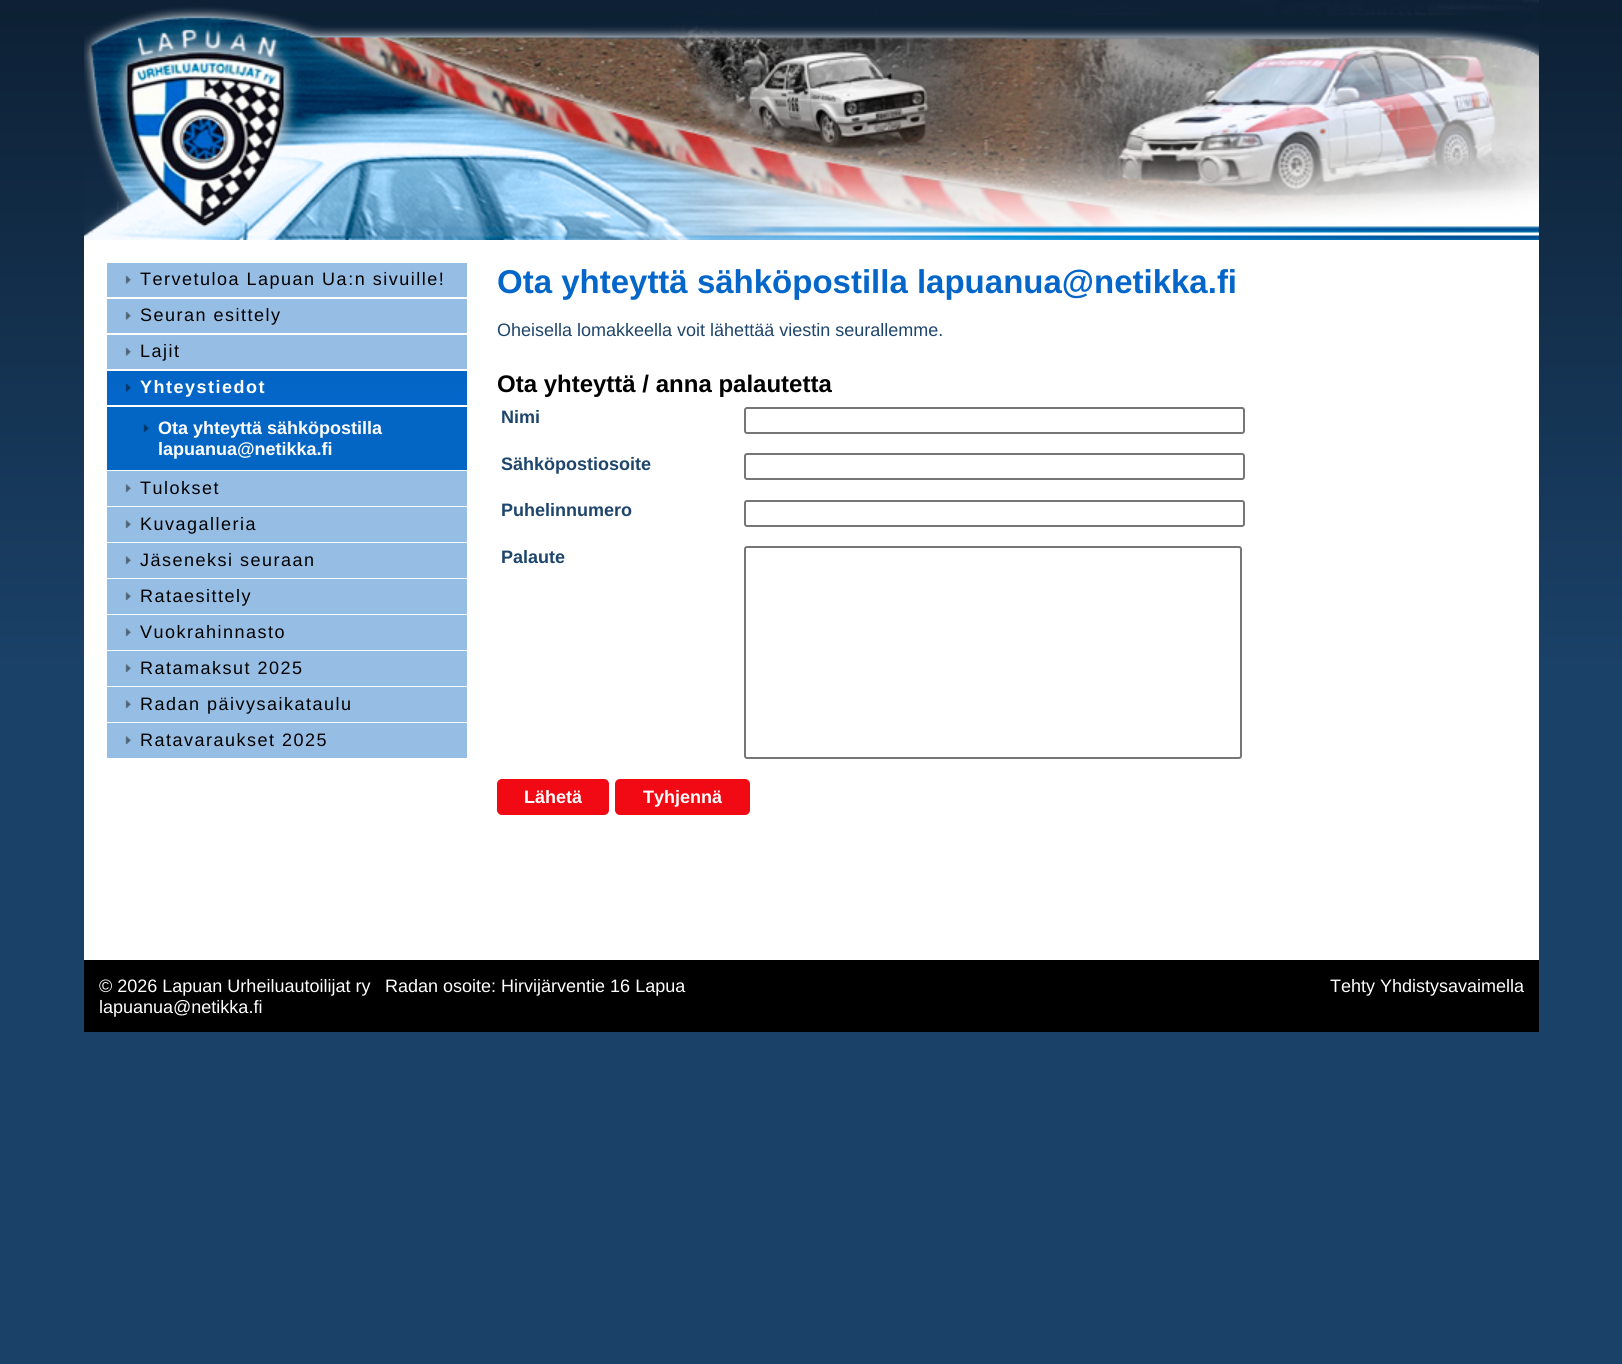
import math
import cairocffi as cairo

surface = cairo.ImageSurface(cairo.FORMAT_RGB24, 1622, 1364)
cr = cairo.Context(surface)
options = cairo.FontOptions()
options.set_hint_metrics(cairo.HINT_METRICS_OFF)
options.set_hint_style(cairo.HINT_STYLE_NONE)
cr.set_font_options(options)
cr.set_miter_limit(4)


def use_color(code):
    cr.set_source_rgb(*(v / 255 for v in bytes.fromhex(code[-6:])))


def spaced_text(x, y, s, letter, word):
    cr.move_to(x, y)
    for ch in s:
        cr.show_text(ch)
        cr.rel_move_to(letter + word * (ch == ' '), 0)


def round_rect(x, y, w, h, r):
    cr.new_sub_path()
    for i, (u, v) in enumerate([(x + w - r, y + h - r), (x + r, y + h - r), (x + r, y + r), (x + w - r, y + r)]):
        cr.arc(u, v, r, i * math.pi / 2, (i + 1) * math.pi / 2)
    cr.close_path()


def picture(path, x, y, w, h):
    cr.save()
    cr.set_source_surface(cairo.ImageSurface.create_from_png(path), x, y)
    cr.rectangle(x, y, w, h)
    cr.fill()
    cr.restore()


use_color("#ffffff")
cr.paint()
gradient = cairo.LinearGradient(812, 0, 812, 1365)
gradient.add_color_stop_rgba(0, 0.051, 0.125, 0.204, 1)
gradient.add_color_stop_rgba(0.49, 0.102, 0.255, 0.408, 1)
gradient.add_color_stop_rgba(1, 0.102, 0.255, 0.408, 1)
cr.set_source(gradient)
cr.rectangle(0, 0, 1622, 1364)
cr.fill()
picture("img1.png", 84, 0, 1455, 240)
use_color("#ffffff")
cr.rectangle(84, 240, 1455, 720)
cr.fill()
use_color("#96bde4")
cr.rectangle(107, 263, 360, 34)
cr.fill()
picture("img2.png", 125, 276, 6, 8)
cr.select_font_face("Liberation Sans")
cr.set_font_size(18)
use_color("#000000")
spaced_text(140, 285, "Tervetuloa Lapuan Ua:n sivuille!", 1.5, 0)
use_color("#96bde4")
cr.rectangle(107, 299, 360, 34)
cr.fill()
picture("img2.png", 125, 312, 6, 8)
use_color("#000000")
spaced_text(140, 321, "Seuran esittely", 1.5, 0)
use_color("#96bde4")
cr.rectangle(107, 335, 360, 34)
cr.fill()
picture("img2.png", 125, 348, 6, 8)
use_color("#000000")
spaced_text(140, 357, "Lajit", 1.5, 0)
gradient = cairo.LinearGradient(287, 371, 287, 405)
gradient.add_color_stop_rgba(0, 0.012, 0.4, 0.773, 1)
gradient.add_color_stop_rgba(0.91, 0.016, 0.4, 0.788, 1)
gradient.add_color_stop_rgba(1, 0.016, 0.4, 0.788, 1)
cr.set_source(gradient)
cr.rectangle(107, 371, 360, 34)
cr.fill()
picture("img3.png", 125, 384, 6, 8)
cr.select_font_face("Liberation Sans", cairo.FONT_SLANT_NORMAL, cairo.FONT_WEIGHT_BOLD)
use_color("#ffffff")
spaced_text(140, 393, "Yhteystiedot", 1.5, 0)
use_color("#0366c5")
cr.rectangle(107, 407, 360, 63)
cr.fill()
picture("img4.png", 143, 424, 6, 8)
use_color("#ffffff")
cr.move_to(158, 434)
cr.show_text("Ota yhteyttä sähköpostilla")
cr.move_to(158, 455)
cr.show_text("lapuanua@netikka.fi")
use_color("#96bde4")
cr.rectangle(107, 471, 360, 35)
cr.fill()
picture("img5.png", 125, 484, 6, 8)
cr.select_font_face("Liberation Sans")
use_color("#000000")
spaced_text(140, 494, "Tulokset", 1.5, 0)
use_color("#96bde4")
cr.rectangle(107, 507, 360, 35)
cr.fill()
picture("img5.png", 125, 520, 6, 8)
use_color("#000000")
spaced_text(140, 530, "Kuvagalleria", 1.5, 0)
use_color("#96bde4")
cr.rectangle(107, 543, 360, 35)
cr.fill()
picture("img5.png", 125, 556, 6, 8)
use_color("#000000")
spaced_text(140, 566, "Jäseneksi seuraan", 1.5, 0)
use_color("#96bde4")
cr.rectangle(107, 579, 360, 35)
cr.fill()
picture("img5.png", 125, 592, 6, 8)
use_color("#000000")
spaced_text(140, 602, "Rataesittely", 1.5, 0)
use_color("#96bde4")
cr.rectangle(107, 615, 360, 35)
cr.fill()
picture("img5.png", 125, 628, 6, 8)
use_color("#000000")
spaced_text(140, 638, "Vuokrahinnasto", 1.5, 0)
use_color("#96bde4")
cr.rectangle(107, 651, 360, 35)
cr.fill()
picture("img5.png", 125, 664, 6, 8)
use_color("#000000")
spaced_text(140, 674, "Ratamaksut 2025", 1.5, 0)
use_color("#96bde4")
cr.rectangle(107, 687, 360, 35)
cr.fill()
picture("img5.png", 125, 700, 6, 8)
use_color("#000000")
spaced_text(140, 710, "Radan päivysaikataulu", 1.5, 0)
use_color("#96bde4")
cr.rectangle(107, 723, 360, 35)
cr.fill()
picture("img5.png", 125, 736, 6, 8)
use_color("#000000")
spaced_text(140, 746, "Ratavaraukset 2025", 1.5, 0)
cr.select_font_face("Liberation Sans", cairo.FONT_SLANT_NORMAL, cairo.FONT_WEIGHT_BOLD)
cr.set_font_size(33)
use_color("#0466c9")
cr.move_to(497, 293)
cr.show_text("Ota yhteyttä sähköpostilla lapuanua@netikka.fi")
cr.select_font_face("Liberation Sans")
cr.set_font_size(18)
use_color("#1e456b")
cr.move_to(497, 336)
cr.show_text("Oheisella lomakkeella voit lähettää viestin seurallemme.")
cr.select_font_face("Liberation Sans", cairo.FONT_SLANT_NORMAL, cairo.FONT_WEIGHT_BOLD)
cr.set_font_size(24)
use_color("#000000")
cr.move_to(497, 392)
cr.show_text("Ota yhteyttä / anna palautetta")
cr.set_font_size(18)
use_color("#1e456b")
cr.move_to(501, 423)
cr.show_text("Nimi")
round_rect(745, 408, 499, 25, 2)
use_color("#767676")
cr.stroke()
use_color("#1e456b")
cr.move_to(501, 470)
cr.show_text("Sähköpostiosoite")
round_rect(745, 454, 499, 25, 2)
use_color("#767676")
cr.stroke()
use_color("#1e456b")
cr.move_to(501, 516)
cr.show_text("Puhelinnumero")
round_rect(745, 501, 499, 25, 2)
use_color("#767676")
cr.stroke()
use_color("#1e456b")
cr.move_to(501, 563)
cr.show_text("Palaute")
round_rect(745, 547, 496, 211, 2)
use_color("#767676")
cr.stroke()
use_color("#f10914")
round_rect(497, 779, 112, 36, 5)
cr.fill()
use_color("#ffffff")
cr.move_to(524, 803)
cr.show_text("Lähetä")
use_color("#f10914")
round_rect(615, 779, 135, 36, 5)
cr.fill()
use_color("#ffffff")
cr.move_to(643, 803)
cr.show_text("Tyhjennä")
use_color("#000000")
cr.rectangle(84, 960, 1455, 72)
cr.fill()
cr.select_font_face("Liberation Sans")
use_color("#ffffff")
cr.move_to(99, 992)
cr.show_text("© 2026 Lapuan Urheiluautoilijat ry")
cr.move_to(385, 992)
cr.show_text("Radan osoite: Hirvijärventie 16 Lapua")
cr.move_to(1330, 992)
cr.show_text("Tehty Yhdistysavaimella")
cr.move_to(99, 1013)
cr.show_text("lapuanua@netikka.fi")
surface.write_to_png("result.png")
